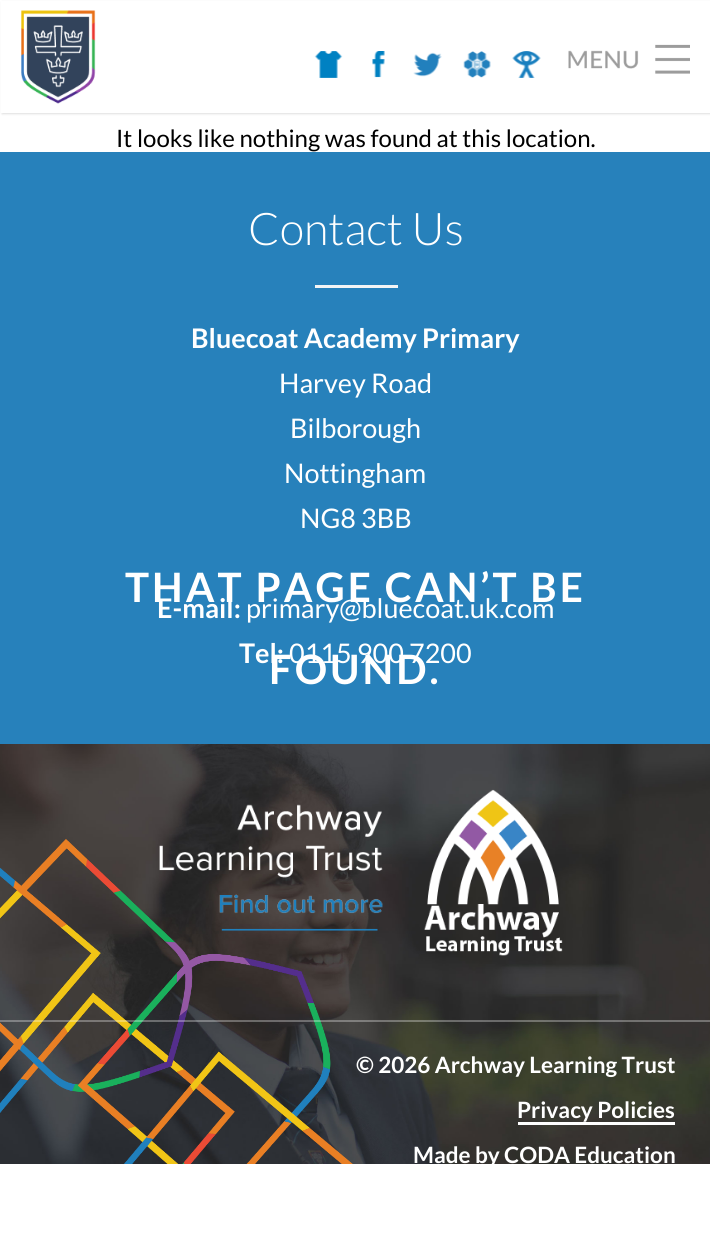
import math
import cairocffi as cairo

surface = cairo.ImageSurface(cairo.FORMAT_RGB24, 710, 1253)
cr = cairo.Context(surface)
options = cairo.FontOptions()
options.set_hint_metrics(cairo.HINT_METRICS_OFF)
options.set_hint_style(cairo.HINT_STYLE_NONE)
cr.set_font_options(options)
cr.set_miter_limit(4)


def use_color(code):
    cr.set_source_rgb(*(v / 255 for v in bytes.fromhex(code[-6:])))


def spaced_text(x, y, s, letter, word):
    cr.move_to(x, y)
    for ch in s:
        cr.show_text(ch)
        cr.rel_move_to(letter + word * (ch == ' '), 0)


def round_rect(x, y, w, h, r):
    cr.new_sub_path()
    for i, (u, v) in enumerate([(x + w - r, y + h - r), (x + r, y + h - r), (x + r, y + r), (x + w - r, y + r)]):
        cr.arc(u, v, r, i * math.pi / 2, (i + 1) * math.pi / 2)
    cr.close_path()


def shadow(x, y, w, h, r, blur, alpha):
    cr.push_group_with_content(cairo.CONTENT_ALPHA)
    cr.set_operator(cairo.OPERATOR_SOURCE)
    for i in range(15, -16, -2):
        e = blur * i / 6
        if min(w, h) + 2 * e > 0:
            cr.set_source_rgba(0, 0, 0, alpha * math.erfc((i - 1) / 8.5) / 2)
            round_rect(x - e, y - e, w + 2 * e, h + 2 * e, max(0, min(r + e + blur * .6, min(w, h) / 2 + e)))
            cr.fill()
    cr.mask(cr.pop_group())


def picture(path, x, y, w, h):
    cr.save()
    cr.set_source_surface(cairo.ImageSurface.create_from_png(path), x, y)
    cr.rectangle(x, y, w, h)
    cr.fill()
    cr.restore()


use_color("#ffffff")
cr.paint()
use_color("#000000")
shadow(2, 2, 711, 112, 0, 1, 0.13)
use_color("#ffffff")
cr.rectangle(1, 1, 709, 112)
cr.fill()
picture("img1.png", 568, 44, 122, 30)
picture("img2.png", 21, 10, 75, 94)
picture("img3.png", 314, 51, 29, 27)
picture("img4.png", 372, 51, 13, 27)
picture("img5.png", 413, 52, 29, 25)
picture("img6.png", 463, 51, 28, 27)
picture("img7.png", 512, 51, 29, 27)
cr.select_font_face("Lato")
cr.set_font_size(24)
use_color("#000000")
cr.move_to(116, 147)
cr.show_text("It looks like nothing was found at this location.")
use_color("#2781bb")
cr.rectangle(0, 152, 710, 592)
cr.fill()
cr.select_font_face("Lato Light")
cr.set_font_size(45)
use_color("#ffffff")
cr.move_to(248, 245)
cr.show_text("Contact Us")
use_color("#f3f4f5")
cr.rectangle(315, 285, 83, 3)
cr.fill()
cr.select_font_face("Lato", cairo.FONT_SLANT_NORMAL, cairo.FONT_WEIGHT_BOLD)
cr.set_font_size(27)
use_color("#ffffff")
cr.move_to(191, 348)
cr.show_text("Bluecoat Academy Primary")
cr.select_font_face("Lato")
cr.move_to(279, 393)
cr.show_text("Harvey Road")
cr.move_to(290, 438)
cr.show_text("Bilborough")
cr.move_to(284, 483)
cr.show_text("Nottingham")
cr.move_to(300, 528)
cr.show_text("NG8 3BB")
cr.select_font_face("Lato", cairo.FONT_SLANT_NORMAL, cairo.FONT_WEIGHT_BOLD)
cr.move_to(157, 618)
cr.show_text("E-mail:")
cr.select_font_face("Lato")
cr.move_to(246, 618)
cr.show_text("primary@bluecoat.uk.com")
cr.select_font_face("Lato", cairo.FONT_SLANT_NORMAL, cairo.FONT_WEIGHT_BOLD)
cr.move_to(239, 663)
cr.show_text("Tel:")
cr.select_font_face("Lato")
cr.move_to(289, 663)
cr.show_text("0115 900 7200")
picture("img8.png", 0, 744, 710, 420)
picture("img9.png", 159, 789, 404, 167)
cr.set_source_rgba(1, 1, 1, 0.31)
cr.rectangle(0, 1020, 710, 2)
cr.fill()
cr.select_font_face("Lato", cairo.FONT_SLANT_NORMAL, cairo.FONT_WEIGHT_BOLD)
cr.set_font_size(22.5)
use_color("#ffffff")
cr.move_to(356, 1073)
cr.show_text("© 2026 Archway Learning Trust")
cr.move_to(517, 1118)
cr.show_text("Privacy Policies")
cr.rectangle(518, 1122, 157, 3)
cr.fill()
cr.move_to(413, 1163)
cr.show_text("Made by CODA Education")
cr.set_font_size(40.5)
spaced_text(125, 602, "THAT PAGE CAN’T BE", 3, 0)
spaced_text(269, 684, "FOUND.", 3, 0)
surface.write_to_png("result.png")
